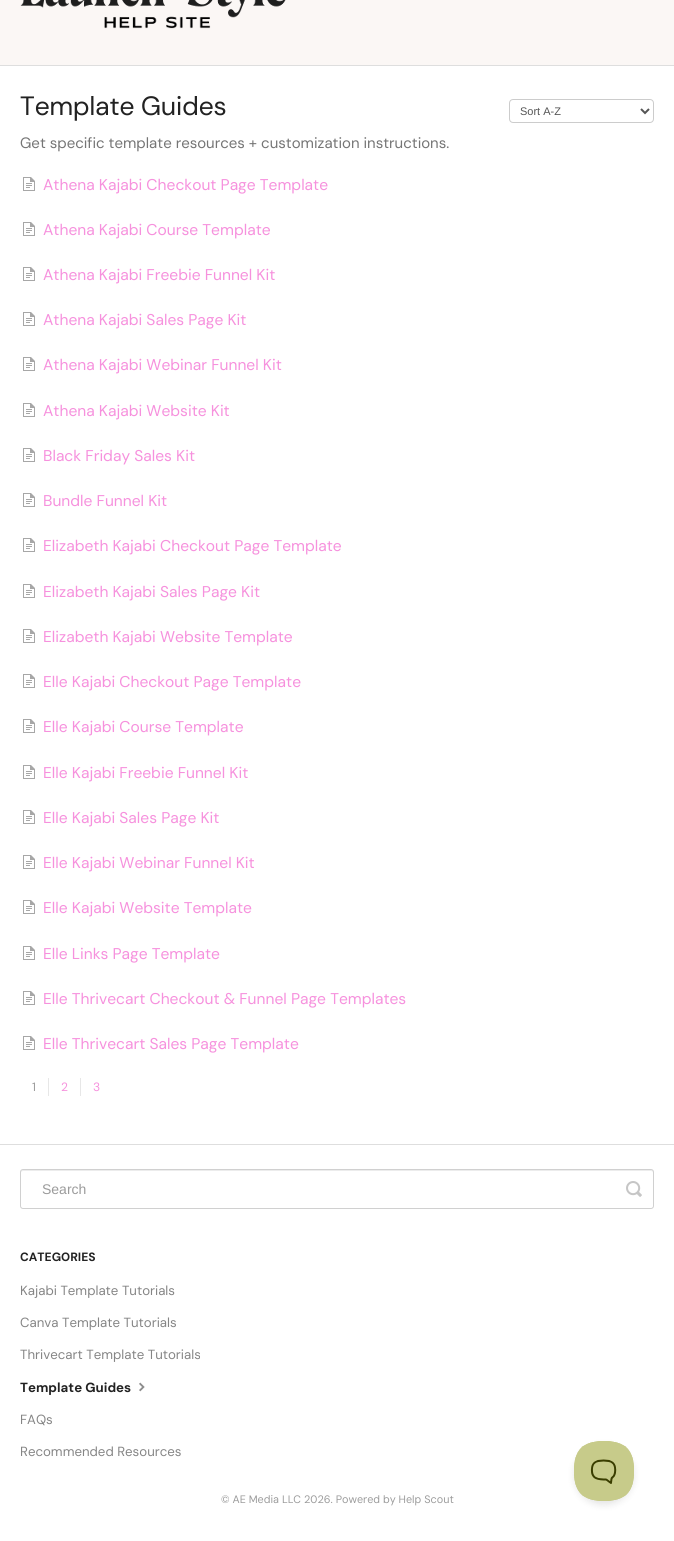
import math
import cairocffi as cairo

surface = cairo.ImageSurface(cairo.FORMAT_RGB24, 674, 1541)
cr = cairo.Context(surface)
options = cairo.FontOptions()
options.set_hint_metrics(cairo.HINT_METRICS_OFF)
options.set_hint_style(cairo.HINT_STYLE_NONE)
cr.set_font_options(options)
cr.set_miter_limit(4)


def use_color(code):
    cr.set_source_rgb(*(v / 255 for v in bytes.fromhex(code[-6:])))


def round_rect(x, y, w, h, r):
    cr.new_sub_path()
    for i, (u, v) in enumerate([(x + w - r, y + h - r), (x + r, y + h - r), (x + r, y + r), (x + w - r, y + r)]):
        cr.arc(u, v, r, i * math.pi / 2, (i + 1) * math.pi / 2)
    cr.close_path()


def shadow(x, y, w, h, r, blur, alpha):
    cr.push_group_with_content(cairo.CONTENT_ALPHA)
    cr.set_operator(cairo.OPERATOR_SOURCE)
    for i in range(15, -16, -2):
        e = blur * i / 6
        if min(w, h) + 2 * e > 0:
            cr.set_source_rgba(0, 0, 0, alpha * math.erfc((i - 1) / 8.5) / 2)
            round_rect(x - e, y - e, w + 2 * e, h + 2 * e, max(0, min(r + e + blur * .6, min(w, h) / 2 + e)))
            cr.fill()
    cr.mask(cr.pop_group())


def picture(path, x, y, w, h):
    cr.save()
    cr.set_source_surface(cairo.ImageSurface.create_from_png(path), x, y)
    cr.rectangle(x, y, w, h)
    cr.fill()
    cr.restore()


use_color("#ffffff")
cr.paint()
use_color("#fbf7f5")
cr.rectangle(0, 0, 674, 65)
cr.fill()
picture("img1.png", 20, 0, 266, 29)
use_color("#dedede")
cr.rectangle(0, 65, 674, 1)
cr.fill()
cr.rectangle(0, 1144, 674, 1)
cr.fill()
cr.select_font_face("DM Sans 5")
cr.set_font_size(26.5)
use_color("#222222")
cr.move_to(20, 115)
cr.show_text("Template Guides")
round_rect(509.5, 99.5, 144, 23, 3.5)
use_color("#cccccc")
cr.set_line_width(1)
cr.stroke()
cr.new_path()
cr.move_to(641, 109)
cr.line_to(645, 113)
cr.line_to(649, 109)
use_color("#555555")
cr.set_line_width(2)
cr.stroke()
cr.select_font_face("Liberation Sans")
cr.set_font_size(11)
cr.move_to(520, 115)
cr.show_text("Sort A-Z")
cr.select_font_face("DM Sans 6")
cr.set_font_size(15)
use_color("#757575")
cr.move_to(20, 148)
cr.show_text("Get specific template resources + customization instructions.")
picture("img2.png", 23, 177, 12, 14)
cr.select_font_face("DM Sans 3")
cr.set_font_size(15.6)
use_color("#f691dd")
cr.move_to(43, 190)
cr.show_text("Athena Kajabi Checkout Page Template")
picture("img2.png", 23, 222, 12, 14)
cr.move_to(43, 235)
cr.show_text("Athena Kajabi Course Template")
picture("img2.png", 23, 267, 12, 14)
cr.move_to(43, 280)
cr.show_text("Athena Kajabi Freebie Funnel Kit")
picture("img2.png", 23, 312, 12, 14)
cr.move_to(43, 325)
cr.show_text("Athena Kajabi Sales Page Kit")
picture("img2.png", 23, 357, 12, 14)
cr.move_to(43, 370)
cr.show_text("Athena Kajabi Webinar Funnel Kit")
picture("img2.png", 23, 403, 12, 14)
cr.move_to(43, 416)
cr.show_text("Athena Kajabi Website Kit")
picture("img2.png", 23, 448, 12, 14)
cr.move_to(43, 461)
cr.show_text("Black Friday Sales Kit")
picture("img2.png", 23, 493, 12, 14)
cr.move_to(43, 506)
cr.show_text("Bundle Funnel Kit")
picture("img2.png", 23, 538, 12, 14)
cr.move_to(43, 551)
cr.show_text("Elizabeth Kajabi Checkout Page Template")
picture("img2.png", 23, 584, 12, 14)
cr.move_to(43, 597)
cr.show_text("Elizabeth Kajabi Sales Page Kit")
picture("img2.png", 23, 629, 12, 14)
cr.move_to(43, 642)
cr.show_text("Elizabeth Kajabi Website Template")
picture("img2.png", 23, 674, 12, 14)
cr.move_to(43, 687)
cr.show_text("Elle Kajabi Checkout Page Template")
picture("img2.png", 23, 719, 12, 14)
cr.move_to(43, 732)
cr.show_text("Elle Kajabi Course Template")
picture("img2.png", 23, 765, 12, 14)
cr.move_to(43, 778)
cr.show_text("Elle Kajabi Freebie Funnel Kit")
picture("img2.png", 23, 810, 12, 14)
cr.move_to(43, 823)
cr.show_text("Elle Kajabi Sales Page Kit")
picture("img2.png", 23, 855, 12, 14)
cr.move_to(43, 868)
cr.show_text("Elle Kajabi Webinar Funnel Kit")
picture("img2.png", 23, 900, 12, 14)
cr.move_to(43, 913)
cr.show_text("Elle Kajabi Website Template")
picture("img2.png", 23, 946, 12, 14)
cr.move_to(43, 959)
cr.show_text("Elle Links Page Template")
picture("img2.png", 23, 991, 12, 14)
cr.move_to(43, 1004)
cr.show_text("Elle Thrivecart Checkout & Funnel Page Templates")
picture("img2.png", 23, 1036, 12, 14)
cr.move_to(43, 1049)
cr.show_text("Elle Thrivecart Sales Page Template")
cr.select_font_face("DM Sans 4")
cr.set_font_size(12)
use_color("#9b9b9b")
cr.move_to(32, 1091)
cr.show_text("1")
use_color("#e7e7e7")
cr.rectangle(48, 1078, 1, 18)
cr.fill()
use_color("#f691dd")
cr.move_to(61, 1091)
cr.show_text("2")
use_color("#e7e7e7")
cr.rectangle(80, 1078, 1, 18)
cr.fill()
cr.select_font_face("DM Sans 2")
use_color("#f691dd")
cr.move_to(93, 1091)
cr.show_text("3")
use_color("#ececec")
cr.new_path()
cr.move_to(23, 1171)
cr.line_to(651, 1171)
cr.curve_to(652, 1171, 653, 1172, 653, 1173)
cr.curve_to(653, 1172, 653, 1170, 651, 1170)
cr.line_to(23, 1170)
cr.curve_to(21, 1170, 21, 1172, 21, 1173)
cr.curve_to(21, 1172, 22, 1171, 23, 1171)
cr.close_path()
cr.fill()
round_rect(20.5, 1169.5, 633, 39, 2.5)
use_color("#d0d0d0")
cr.set_line_width(1)
cr.stroke()
cr.select_font_face("Liberation Sans")
cr.set_font_size(14)
use_color("#9b9b9b")
cr.move_to(42, 1194)
cr.show_text("Search")
picture("img3.png", 626, 1181, 16, 16)
cr.select_font_face("DM Sans", cairo.FONT_SLANT_NORMAL, cairo.FONT_WEIGHT_BOLD)
cr.set_font_size(12)
use_color("#222222")
cr.move_to(20, 1261)
cr.show_text("CATEGORIES")
cr.select_font_face("DM Sans")
cr.set_font_size(13.25)
use_color("#858585")
cr.move_to(20, 1295)
cr.show_text("Kajabi Template Tutorials")
cr.move_to(20, 1327)
cr.show_text("Canva Template Tutorials")
cr.move_to(20, 1359)
cr.show_text("Thrivecart Template Tutorials")
cr.select_font_face("DM Sans 2", cairo.FONT_SLANT_NORMAL, cairo.FONT_WEIGHT_BOLD)
use_color("#222222")
cr.move_to(20, 1392)
cr.show_text("Template Guides")
picture("img4.png", 139, 1382, 6, 10)
cr.select_font_face("DM Sans")
use_color("#858585")
cr.move_to(20, 1424)
cr.show_text("FAQs")
cr.move_to(20, 1456)
cr.show_text("Recommended Resources")
cr.select_font_face("DM Sans 2")
cr.set_font_size(10.8)
use_color("#9b9b9b")
cr.move_to(221, 1503)
cr.show_text("© AE Media LLC 2026. Powered by Help Scout")
use_color("#000000")
shadow(574, 1445, 60, 60, 30, 3.5, 0.1)
picture("img5.png", 574, 1441, 60, 60)
surface.write_to_png("result.png")
